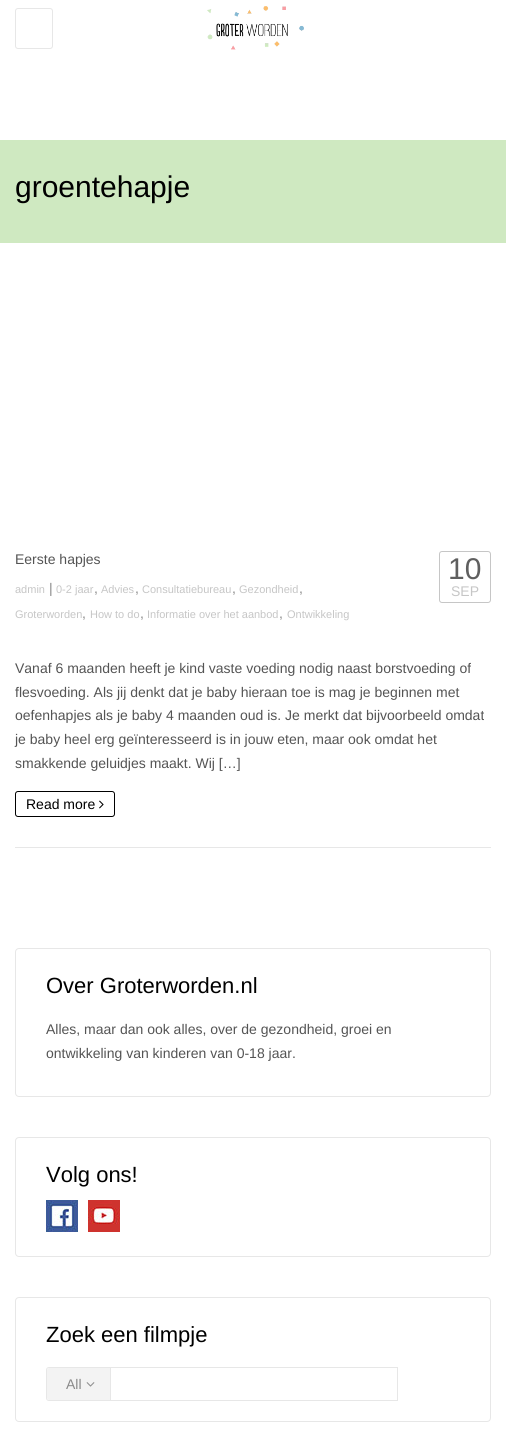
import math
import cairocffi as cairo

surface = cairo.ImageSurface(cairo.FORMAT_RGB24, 506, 1442)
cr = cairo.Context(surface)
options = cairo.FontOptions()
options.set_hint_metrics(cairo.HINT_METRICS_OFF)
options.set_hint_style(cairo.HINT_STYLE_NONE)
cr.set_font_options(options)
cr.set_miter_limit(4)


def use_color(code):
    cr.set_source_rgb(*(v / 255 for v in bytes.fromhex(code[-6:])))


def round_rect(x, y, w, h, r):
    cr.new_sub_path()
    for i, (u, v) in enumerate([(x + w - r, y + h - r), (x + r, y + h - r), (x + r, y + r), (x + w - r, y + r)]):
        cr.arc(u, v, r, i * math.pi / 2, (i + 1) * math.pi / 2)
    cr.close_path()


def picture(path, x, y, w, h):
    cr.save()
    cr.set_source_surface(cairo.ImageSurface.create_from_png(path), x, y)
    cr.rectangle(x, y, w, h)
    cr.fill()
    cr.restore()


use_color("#ffffff")
cr.paint()
round_rect(15.5, 8.5, 37, 40, 2.5)
use_color("#e7e7e7")
cr.set_line_width(1)
cr.stroke()
picture("img1.png", 207, 6, 97, 44)
use_color("#cfe9c1")
cr.rectangle(0, 140, 506, 103)
cr.fill()
cr.select_font_face("Liberation Sans")
cr.set_font_size(30)
use_color("#000000")
cr.move_to(15, 197)
cr.show_text("groentehapje")
use_color("#e7e7e7")
cr.rectangle(15, 847, 476, 1)
cr.fill()
cr.set_font_size(14)
use_color("#545454")
cr.move_to(15, 564)
cr.show_text("Eerste hapjes")
cr.set_font_size(11)
use_color("#c6c6c6")
cr.move_to(15, 593)
cr.show_text("admin")
cr.set_font_size(14)
use_color("#8a8a8a")
cr.move_to(49, 593)
cr.show_text("|")
cr.set_font_size(11)
use_color("#c6c6c6")
cr.move_to(56, 593)
cr.show_text("0-2 jaar")
cr.set_font_size(14)
use_color("#8a8a8a")
cr.move_to(94, 593)
cr.show_text(",")
cr.set_font_size(11)
use_color("#c6c6c6")
cr.move_to(101, 593)
cr.show_text("Advies")
cr.set_font_size(14)
use_color("#8a8a8a")
cr.move_to(135, 593)
cr.show_text(",")
cr.set_font_size(11)
use_color("#c6c6c6")
cr.move_to(142, 593)
cr.show_text("Consultatiebureau")
cr.set_font_size(14)
use_color("#8a8a8a")
cr.move_to(232, 593)
cr.show_text(",")
cr.set_font_size(11)
use_color("#c6c6c6")
cr.move_to(239, 593)
cr.show_text("Gezondheid")
cr.set_font_size(14)
use_color("#8a8a8a")
cr.move_to(299, 593)
cr.show_text(",")
cr.set_font_size(11)
use_color("#c6c6c6")
cr.move_to(15, 618)
cr.show_text("Groterworden")
cr.set_font_size(14)
use_color("#8a8a8a")
cr.move_to(82, 618)
cr.show_text(",")
cr.set_font_size(11)
use_color("#c6c6c6")
cr.move_to(90, 618)
cr.show_text("How to do")
cr.set_font_size(14)
use_color("#8a8a8a")
cr.move_to(140, 618)
cr.show_text(",")
cr.set_font_size(11)
use_color("#c6c6c6")
cr.move_to(147, 618)
cr.show_text("Informatie over het aanbod")
cr.set_font_size(14)
use_color("#8a8a8a")
cr.move_to(279, 618)
cr.show_text(",")
cr.set_font_size(11)
use_color("#c6c6c6")
cr.move_to(287, 618)
cr.show_text("Ontwikkeling")
round_rect(439.5, 551.5, 51, 51, 2.5)
cr.stroke()
cr.set_font_size(30)
use_color("#5f5f5f")
cr.move_to(448, 579)
cr.show_text("10")
cr.set_font_size(14)
use_color("#c6c6c6")
cr.move_to(451, 596)
cr.show_text("SEP")
use_color("#545454")
cr.move_to(15, 673)
cr.show_text("Vanaf 6 maanden heeft je kind vaste voeding nodig naast borstvoeding of")
cr.move_to(15, 697)
cr.show_text("flesvoeding. Als jij denkt dat je baby hieraan toe is mag je beginnen met")
cr.move_to(15, 720)
cr.show_text("oefenhapjes als je baby 4 maanden oud is. Je merkt dat bijvoorbeeld omdat")
cr.move_to(15, 744)
cr.show_text("je baby heel erg geïnteresseerd is in jouw eten, maar ook omdat het")
cr.move_to(15, 768)
cr.show_text("smakkende geluidjes maakt. Wij […]")
round_rect(15.5, 791.5, 99, 25, 2.5)
use_color("#000000")
cr.stroke()
cr.move_to(26, 809)
cr.show_text("Read more")
picture("img2.png", 99, 800, 5, 9)
round_rect(15.5, 948.5, 475, 148, 3.5)
use_color("#e7e7e7")
cr.stroke()
cr.set_font_size(22)
use_color("#000000")
cr.move_to(46, 993)
cr.show_text("Over Groterworden.nl")
cr.set_font_size(14)
use_color("#545454")
cr.move_to(46, 1034)
cr.show_text("Alles, maar dan ook alles, over de gezondheid, groei en")
cr.move_to(46, 1058)
cr.show_text("ontwikkeling van kinderen van 0-18 jaar.")
round_rect(15.5, 1137.5, 475, 119, 3.5)
use_color("#e7e7e7")
cr.stroke()
cr.set_font_size(22)
use_color("#000000")
cr.move_to(46, 1182)
cr.show_text("Volg ons!")
picture("img3.png", 46, 1200, 32, 32)
picture("img4.png", 88, 1200, 32, 32)
round_rect(15.5, 1297.5, 475, 124, 3.5)
use_color("#e7e7e7")
cr.stroke()
use_color("#000000")
cr.move_to(46, 1342)
cr.show_text("Zoek een filmpje")
cr.new_path()
cr.move_to(49, 1367.5)
cr.line_to(397.5, 1367.5)
cr.line_to(397.5, 1400.5)
cr.line_to(49, 1400.5)
cr.curve_to(47.5, 1400.5, 46.5, 1399.5, 46.5, 1398)
cr.line_to(46.5, 1370)
cr.curve_to(46.5, 1368.5, 47.5, 1367.5, 49, 1367.5)
cr.close_path()
use_color("#e7e7e7")
cr.stroke()
use_color("#f3f3f3")
cr.new_path()
cr.move_to(49, 1368)
cr.line_to(111, 1368)
cr.line_to(111, 1400)
cr.line_to(49, 1400)
cr.curve_to(48, 1400, 47, 1399, 47, 1398)
cr.line_to(47, 1370)
cr.curve_to(47, 1369, 48, 1368, 49, 1368)
cr.close_path()
cr.fill()
use_color("#e7e7e7")
cr.rectangle(110, 1368, 1, 32)
cr.fill()
cr.set_font_size(14)
use_color("#8a8a8a")
cr.move_to(66, 1389)
cr.show_text("All")
picture("img5.png", 86, 1382, 9, 5)
surface.write_to_png("result.png")
